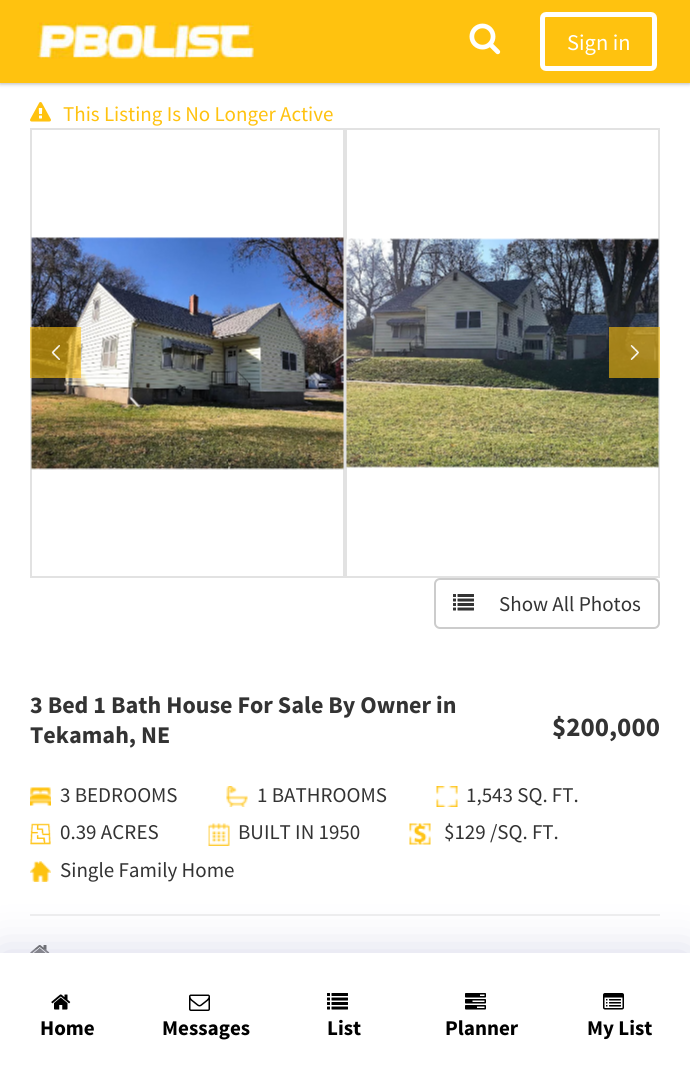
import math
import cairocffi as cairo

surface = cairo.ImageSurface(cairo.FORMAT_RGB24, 690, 1079)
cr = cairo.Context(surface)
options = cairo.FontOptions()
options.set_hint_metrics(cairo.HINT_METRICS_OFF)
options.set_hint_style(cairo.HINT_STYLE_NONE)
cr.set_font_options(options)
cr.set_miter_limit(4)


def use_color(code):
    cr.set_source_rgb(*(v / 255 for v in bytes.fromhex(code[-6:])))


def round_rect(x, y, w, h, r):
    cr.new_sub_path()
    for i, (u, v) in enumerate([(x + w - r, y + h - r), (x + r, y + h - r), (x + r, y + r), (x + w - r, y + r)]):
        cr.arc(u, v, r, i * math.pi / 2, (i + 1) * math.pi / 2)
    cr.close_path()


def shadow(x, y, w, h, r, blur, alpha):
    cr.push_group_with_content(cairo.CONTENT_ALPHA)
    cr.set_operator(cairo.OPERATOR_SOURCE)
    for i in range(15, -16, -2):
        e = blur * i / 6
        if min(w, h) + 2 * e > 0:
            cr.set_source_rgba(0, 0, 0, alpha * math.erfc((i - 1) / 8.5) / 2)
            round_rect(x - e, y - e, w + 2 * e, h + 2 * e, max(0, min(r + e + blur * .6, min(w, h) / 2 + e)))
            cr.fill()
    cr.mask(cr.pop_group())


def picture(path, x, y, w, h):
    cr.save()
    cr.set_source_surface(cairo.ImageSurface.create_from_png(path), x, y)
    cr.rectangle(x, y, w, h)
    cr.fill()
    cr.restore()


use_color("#ffffff")
cr.paint()
use_color("#323232")
shadow(0, 2, 690, 82, 0, 2, 0.35)
use_color("#ffc20f")
cr.rectangle(0, 0, 690, 83)
cr.fill()
picture("img1.png", 37, 22, 217, 37)
picture("img2.png", 469, 23, 32, 32)
round_rect(542.5, 14.5, 112, 54, 3.5)
use_color("#ffffff")
cr.set_line_width(5)
cr.stroke()
cr.select_font_face("Source Sans Pro")
cr.set_font_size(22.5)
cr.move_to(567, 50)
cr.show_text("Sign in")
picture("img3.png", 30, 102, 21, 20)
cr.set_font_size(21)
use_color("#ffc20f")
cr.move_to(63, 121)
cr.show_text("This Listing Is No Longer Active")
cr.rectangle(31, 129, 313, 448)
use_color("#e2e2e2")
cr.set_line_width(2)
cr.stroke()
picture("img4.png", 31, 237, 313, 233)
cr.rectangle(346, 129, 313, 448)
cr.stroke()
picture("img5.png", 346, 238, 313, 230)
cr.set_source_rgba(1, 0.761, 0.059, 0.6)
cr.rectangle(30, 327, 51, 51)
cr.fill()
picture("img6.png", 51, 345, 9, 15)
cr.rectangle(609, 327, 51, 51)
cr.fill()
picture("img7.png", 630, 345, 9, 15)
round_rect(435, 579, 224, 49, 5)
use_color("#cccccc")
cr.stroke()
picture("img8.png", 453, 594, 21, 17)
use_color("#333333")
cr.move_to(499, 611)
cr.show_text("Show All Photos")
cr.select_font_face("Source Sans Pro", cairo.FONT_SLANT_NORMAL, cairo.FONT_WEIGHT_BOLD)
cr.set_font_size(24)
cr.move_to(30, 713)
cr.show_text("3 Bed 1 Bath House For Sale By Owner in")
cr.move_to(30, 743)
cr.show_text("Tekamah, NE")
cr.set_font_size(27)
cr.move_to(552, 736)
cr.show_text("$200,000")
picture("img9.png", 30, 787, 21, 19)
cr.select_font_face("Source Sans Pro")
cr.set_font_size(21)
cr.move_to(60, 802)
cr.show_text("3 BEDROOMS")
picture("img10.png", 226, 786, 22, 21)
cr.move_to(257, 802)
cr.show_text("1 BATHROOMS")
picture("img11.png", 436, 786, 22, 21)
cr.move_to(466, 802)
cr.show_text("1,543 SQ. FT.")
picture("img12.png", 30, 823, 21, 22)
cr.move_to(60, 839)
cr.show_text("0.39 ACRES")
picture("img13.png", 208, 823, 22, 23)
cr.move_to(238, 839)
cr.show_text("BUILT IN 1950")
picture("img14.png", 409, 823, 22, 22)
cr.move_to(444, 839)
cr.show_text("$129 /SQ. FT.")
picture("img15.png", 30, 861, 21, 21)
cr.move_to(60, 877)
cr.show_text("Single Family Home")
use_color("#eeeeee")
cr.rectangle(30, 914, 630, 2)
cr.fill()
picture("img16.png", 30, 945, 20, 8)
use_color("#d7d8e9")
shadow(0, 953, 690, 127, 0, 22.5, 1)
use_color("#ffffff")
cr.rectangle(0, 953, 690, 126)
cr.fill()
picture("img17.png", 51, 994, 20, 16)
cr.select_font_face("Source Sans Pro", cairo.FONT_SLANT_NORMAL, cairo.FONT_WEIGHT_BOLD)
use_color("#000000")
cr.move_to(40, 1035)
cr.show_text("Home")
picture("img18.png", 189, 994, 21, 17)
cr.move_to(162, 1035)
cr.show_text("Messages")
picture("img19.png", 327, 993, 21, 17)
cr.move_to(327, 1035)
cr.show_text("List")
picture("img20.png", 465, 993, 21, 17)
cr.move_to(445, 1035)
cr.show_text("Planner")
picture("img21.png", 603, 993, 21, 17)
cr.move_to(587, 1035)
cr.show_text("My List")
surface.write_to_png("result.png")
